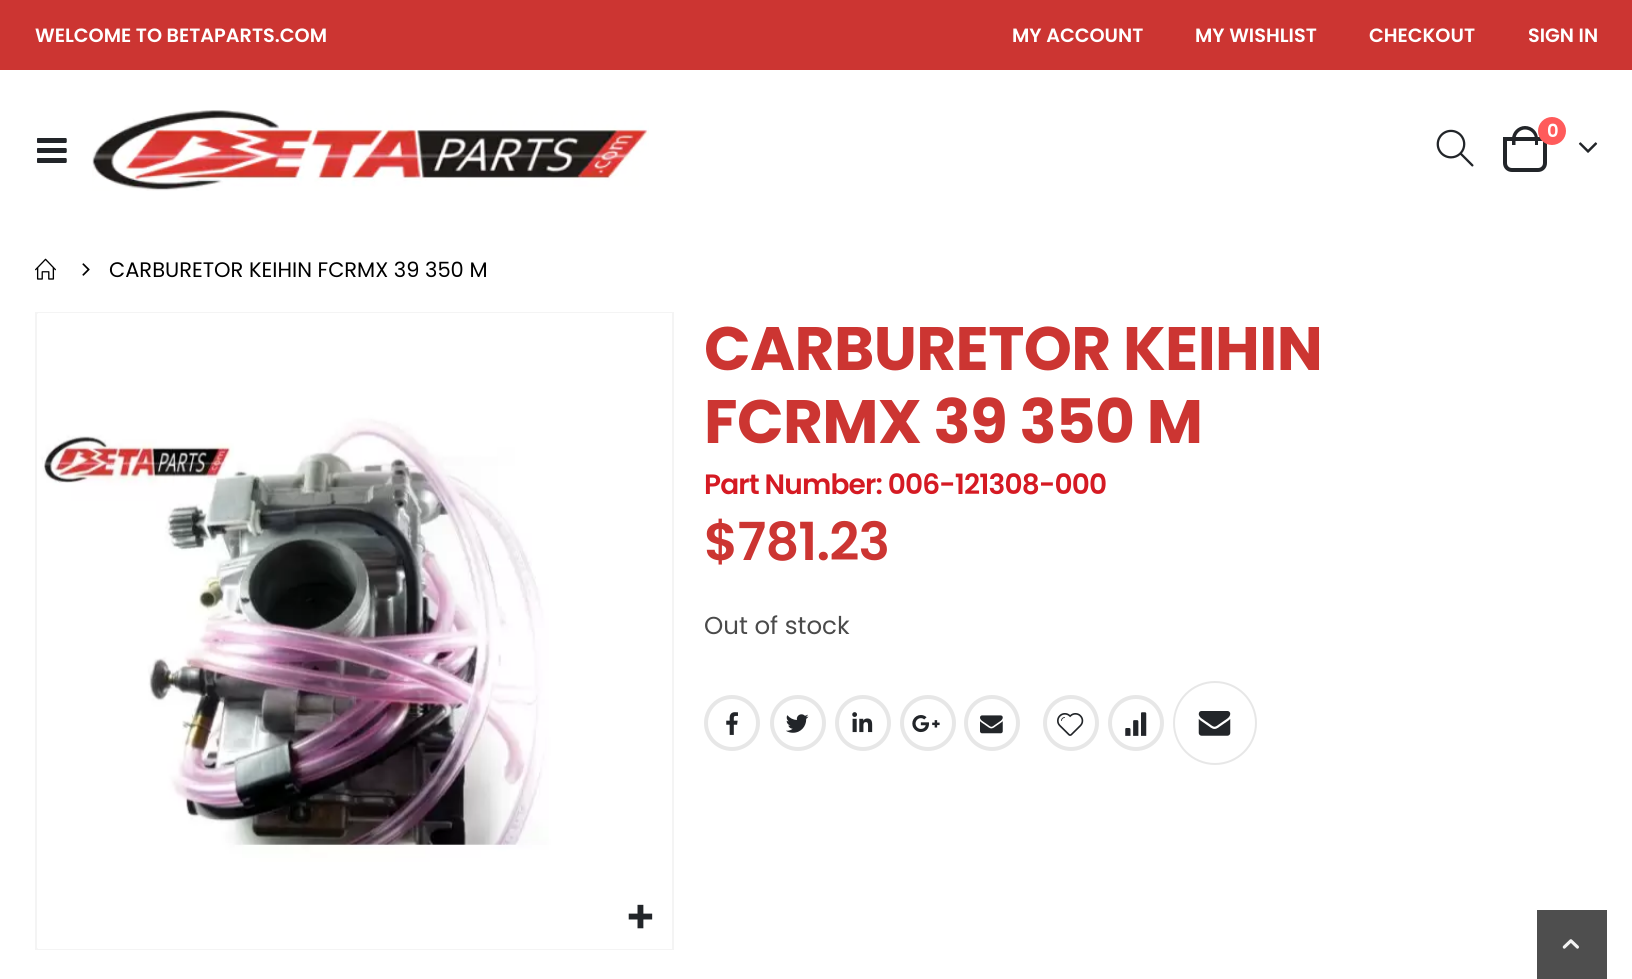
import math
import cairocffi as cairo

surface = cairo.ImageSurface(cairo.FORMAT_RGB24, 1632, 979)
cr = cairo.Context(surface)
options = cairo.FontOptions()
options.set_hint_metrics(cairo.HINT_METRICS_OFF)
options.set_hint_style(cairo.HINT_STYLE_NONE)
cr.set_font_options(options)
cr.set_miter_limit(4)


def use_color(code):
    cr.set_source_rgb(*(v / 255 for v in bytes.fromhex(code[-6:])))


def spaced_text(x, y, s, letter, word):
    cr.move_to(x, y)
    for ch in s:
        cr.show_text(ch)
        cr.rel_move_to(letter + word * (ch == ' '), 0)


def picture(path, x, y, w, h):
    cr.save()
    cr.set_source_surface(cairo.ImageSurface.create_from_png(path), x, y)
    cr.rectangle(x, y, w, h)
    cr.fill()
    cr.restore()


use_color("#ffffff")
cr.paint()
use_color("#cc3532")
cr.rectangle(0, 0, 1632, 70)
cr.fill()
cr.select_font_face("Poppins SemiBold")
cr.set_font_size(19.25)
use_color("#ffffff")
cr.move_to(35, 42)
cr.show_text("WELCOME TO BETAPARTS.COM")
cr.move_to(1012, 42)
cr.show_text("MY ACCOUNT")
cr.move_to(1195, 42)
cr.show_text("MY WISHLIST")
cr.move_to(1369, 42)
cr.show_text("CHECKOUT")
cr.move_to(1528, 42)
cr.show_text("SIGN IN")
picture("img1.png", 37, 138, 30, 25)
picture("img2.png", 92, 110, 557, 81)
picture("img3.png", 1436, 129, 38, 38)
cr.new_path()
cr.move_to(1505, 139)
cr.line_to(1545, 139)
cr.line_to(1545, 163)
cr.curve_to(1545, 167, 1542, 170, 1538, 170)
cr.line_to(1512, 170)
cr.curve_to(1508, 170, 1505, 167, 1505, 163)
cr.close_path()
use_color("#222529")
cr.set_line_width(4)
cr.stroke()
cr.set_fill_rule(cairo.FILL_RULE_EVEN_ODD)
cr.new_path()
cr.move_to(1525, 126)
cr.curve_to(1532.5, 126, 1538, 132, 1538, 139)
cr.line_to(1538, 145)
cr.line_to(1512, 145)
cr.line_to(1512, 139)
cr.curve_to(1512, 132, 1518, 126, 1525, 126)
cr.close_path()
cr.move_to(1525, 129.5)
cr.curve_to(1530.5, 129.5, 1535, 134, 1535, 139)
cr.line_to(1535, 145)
cr.line_to(1515.5, 145)
cr.line_to(1515.5, 139)
cr.curve_to(1515.5, 134, 1520, 129.5, 1525, 129.5)
cr.close_path()
cr.fill()
use_color("#ff5b5b")
cr.arc(1552, 131, 14, 0, 2 * math.pi)
cr.fill()
cr.set_font_size(18)
use_color("#ffffff")
cr.move_to(1547, 137)
cr.show_text("0")
picture("img4.png", 1578, 142, 20, 11)
picture("img5.png", 35, 258, 21, 22)
picture("img6.png", 82, 263, 8, 13)
cr.select_font_face("Poppins")
cr.set_font_size(21)
use_color("#000000")
cr.move_to(109, 277)
cr.show_text("CARBURETOR KEIHIN FCRMX 39 350 M")
cr.rectangle(36, 313, 637, 636)
use_color("#f4f4f4")
cr.set_line_width(2)
cr.stroke()
picture("img7.png", 37, 313, 635, 636)
picture("img8.png", 628, 904, 25, 25)
cr.select_font_face("Poppins", cairo.FONT_SLANT_NORMAL, cairo.FONT_WEIGHT_BOLD)
cr.set_font_size(61.25)
use_color("#cc3532")
spaced_text(704, 370, "CARBURETOR KEIHIN", -0.6, 0)
spaced_text(704, 443, "FCRMX 39 350 M", -0.6, 0)
cr.select_font_face("Poppins SemiBold")
cr.set_font_size(28)
use_color("#d51a23")
spaced_text(704, 494, "Part Number: 006-121308-000", -0.85, 0)
cr.set_font_size(52.5)
use_color("#cc3532")
spaced_text(704, 560, "$781.23", -0.85, 0)
cr.select_font_face("Poppins")
cr.set_font_size(24.5)
use_color("#4a4a4a")
cr.move_to(704, 634)
cr.show_text("Out of stock")
cr.new_path()
cr.arc(732, 723, 26, 0, 2 * math.pi)
use_color("#e7e7e7")
cr.set_line_width(4)
cr.stroke()
picture("img9.png", 726, 712, 12, 23)
cr.arc(798, 723, 26, 0, 2 * math.pi)
cr.stroke()
picture("img10.png", 786, 714, 23, 19)
cr.arc(863, 723, 26, 0, 2 * math.pi)
cr.stroke()
picture("img11.png", 852, 712, 21, 21)
cr.arc(928, 723, 26, 0, 2 * math.pi)
cr.stroke()
picture("img12.png", 912, 715, 28, 18)
cr.arc(992, 723, 26, 0, 2 * math.pi)
cr.stroke()
picture("img13.png", 980, 715, 23, 19)
cr.arc(1071, 723, 26, 0, 2 * math.pi)
cr.stroke()
picture("img14.png", 1057, 713, 27, 23)
cr.arc(1136, 723, 26, 0, 2 * math.pi)
cr.stroke()
picture("img15.png", 1125, 712, 22, 24)
cr.arc(1215, 723, 41, 0, 2 * math.pi)
cr.set_line_width(2)
cr.stroke()
picture("img16.png", 1198, 711, 33, 25)
use_color("#4e4e4e")
cr.rectangle(1537, 910, 70, 69)
cr.fill()
picture("img17.png", 1562, 939, 17, 10)
surface.write_to_png("result.png")
